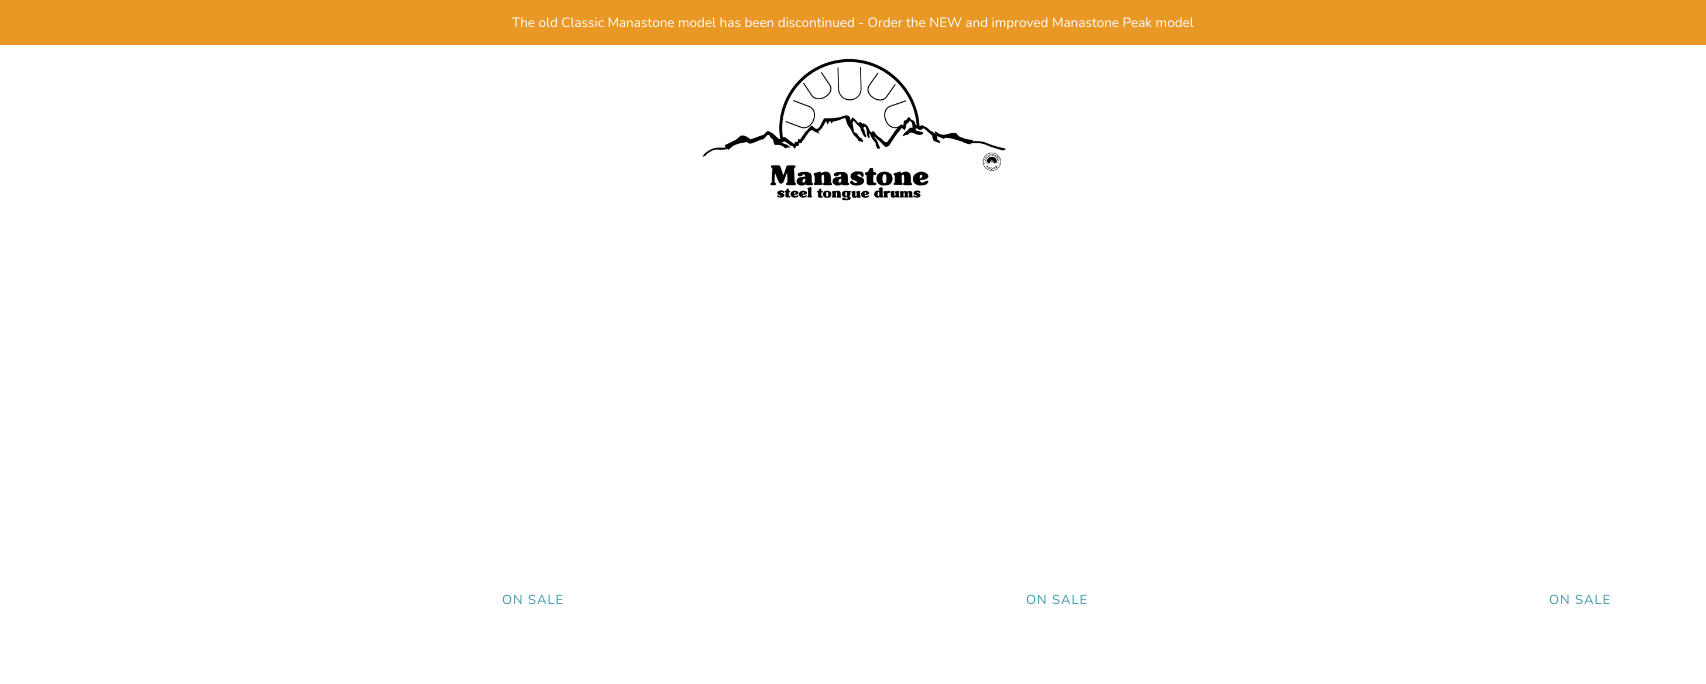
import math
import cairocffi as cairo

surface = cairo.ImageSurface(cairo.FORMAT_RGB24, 1706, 684)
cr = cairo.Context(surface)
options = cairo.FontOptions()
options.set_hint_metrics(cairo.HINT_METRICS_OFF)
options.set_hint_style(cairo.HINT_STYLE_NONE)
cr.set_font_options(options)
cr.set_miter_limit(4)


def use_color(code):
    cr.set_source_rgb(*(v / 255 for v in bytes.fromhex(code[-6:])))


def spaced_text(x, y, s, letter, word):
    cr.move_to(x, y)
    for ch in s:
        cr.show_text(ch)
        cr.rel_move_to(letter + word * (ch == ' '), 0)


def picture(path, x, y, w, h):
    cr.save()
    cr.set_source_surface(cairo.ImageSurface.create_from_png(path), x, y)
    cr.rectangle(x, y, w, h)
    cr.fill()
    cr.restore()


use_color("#ffffff")
cr.paint()
use_color("#e99725")
cr.rectangle(0, 0, 1706, 45)
cr.fill()
cr.select_font_face("Nunito")
cr.set_font_size(13.5)
use_color("#ffffff")
cr.move_to(512, 27)
cr.show_text("The old Classic Manastone model has been discontinued - Order the NEW and improved Manastone Peak model")
picture("img1.png", 702, 58, 304, 143)
cr.set_font_size(13)
use_color("#4098ae")
spaced_text(502, 604, "ON SALE", 1, 0)
spaced_text(1026, 604, "ON SALE", 1, 0)
spaced_text(1549, 604, "ON SALE", 1, 0)
surface.write_to_png("result.png")
